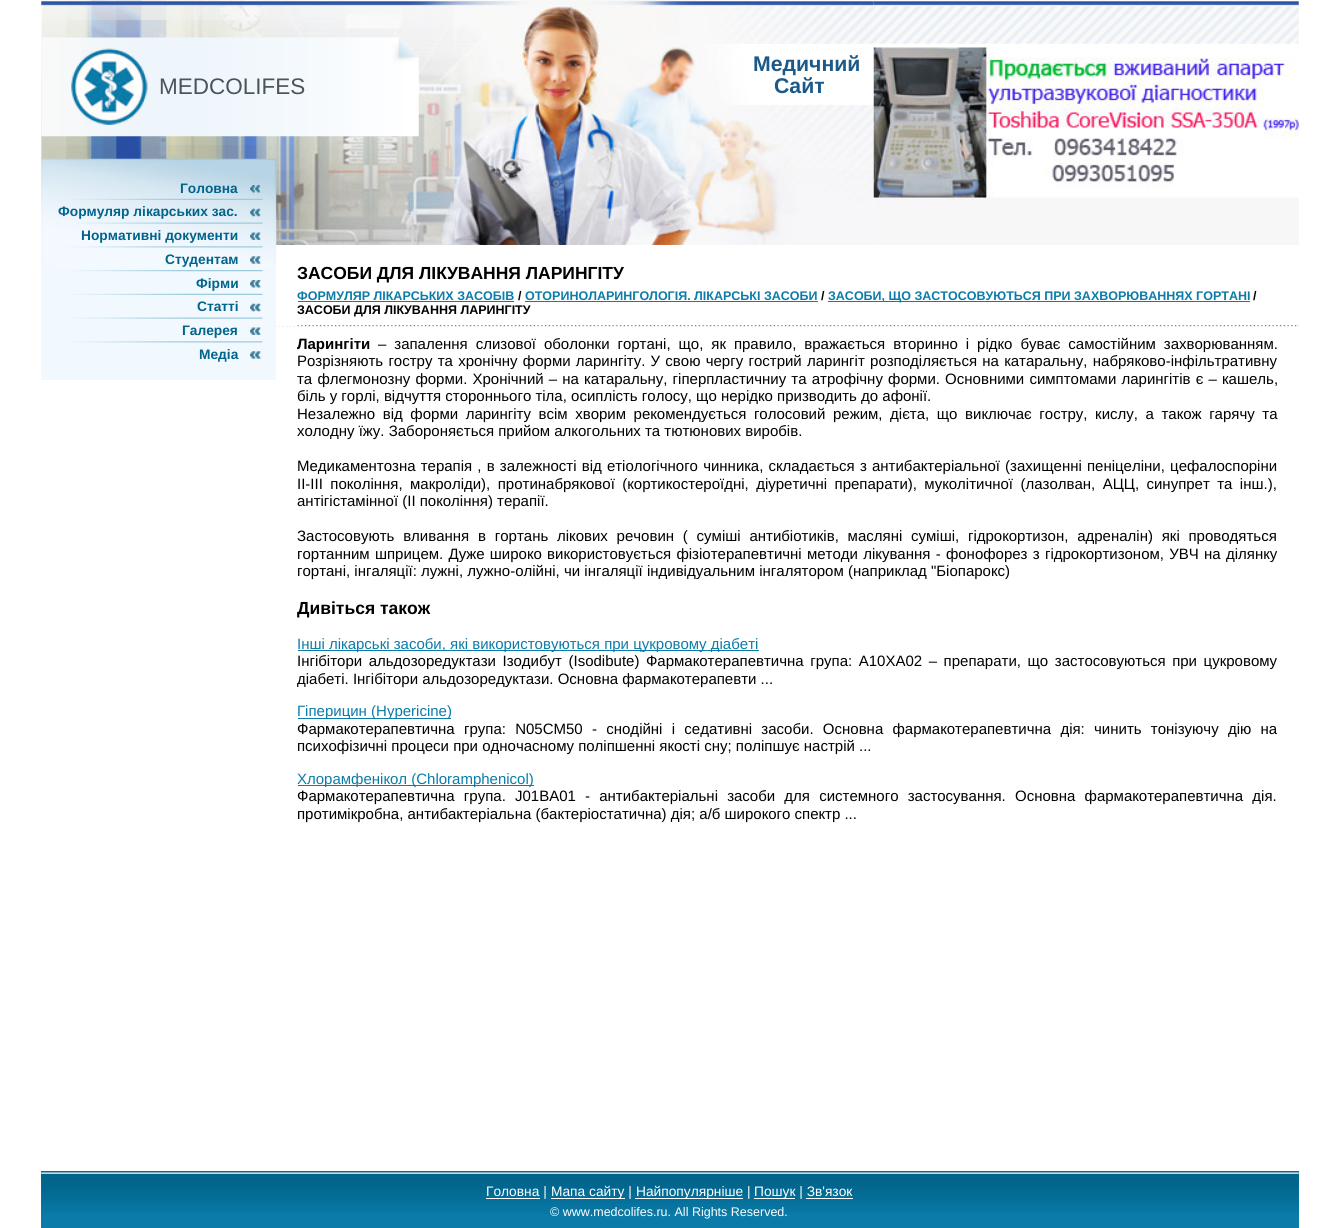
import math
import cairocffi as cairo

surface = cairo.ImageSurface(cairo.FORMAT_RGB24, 1338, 1228)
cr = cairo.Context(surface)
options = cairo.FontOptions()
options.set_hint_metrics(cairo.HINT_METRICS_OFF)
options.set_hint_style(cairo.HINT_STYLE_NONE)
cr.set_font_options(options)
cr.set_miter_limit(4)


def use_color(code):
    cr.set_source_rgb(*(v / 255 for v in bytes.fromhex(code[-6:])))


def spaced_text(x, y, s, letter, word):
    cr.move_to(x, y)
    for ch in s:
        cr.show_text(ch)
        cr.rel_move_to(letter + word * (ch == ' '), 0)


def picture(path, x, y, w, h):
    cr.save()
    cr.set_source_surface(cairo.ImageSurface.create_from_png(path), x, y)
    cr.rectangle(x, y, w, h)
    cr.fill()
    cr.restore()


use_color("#ffffff")
cr.paint()
picture("img4.png", 873, 1, 426, 244)
picture("img1.png", 41, 0, 833, 245)
picture("img2.png", 41, 37, 378, 100)
picture("img3.png", 71, 48, 77, 77)
cr.select_font_face("Liberation Sans")
cr.set_font_size(22.5)
use_color("#48555a")
cr.move_to(159, 94)
cr.show_text("MEDCOLIFES")
cr.select_font_face("Liberation Sans", cairo.FONT_SLANT_NORMAL, cairo.FONT_WEIGHT_BOLD)
cr.set_font_size(21.25)
use_color("#1b5989")
cr.move_to(753, 71)
cr.show_text("Медичний")
cr.move_to(774, 93)
cr.show_text("Сайт")
picture("img5.png", 873, 47, 426, 151)
use_color("#f1f8fe")
cr.rectangle(41, 159, 235, 221)
cr.fill()
picture("img6.png", 41, 158, 236, 110)
picture("img7.png", 250, 185, 11, 8)
cr.set_font_size(13.75)
use_color("#00648b")
cr.move_to(180, 193)
cr.show_text("Головна")
picture("img8.png", 68, 198, 195, 2)
picture("img9.png", 250, 208, 11, 9)
cr.move_to(58, 216)
cr.show_text("Формуляр лікарських зас.")
picture("img10.png", 76, 222, 187, 2)
picture("img11.png", 250, 232, 12, 8)
cr.move_to(81, 240)
cr.show_text("Нормативні документи")
picture("img12.png", 68, 246, 195, 2)
picture("img13.png", 250, 256, 12, 8)
cr.move_to(165, 264)
cr.show_text("Студентам")
picture("img14.png", 72, 270, 191, 2)
picture("img15.png", 250, 280, 12, 8)
cr.move_to(196, 288)
cr.show_text("Фірми")
picture("img16.png", 72, 293, 191, 2)
picture("img17.png", 250, 303, 12, 9)
cr.move_to(197, 311)
cr.show_text("Статті")
picture("img18.png", 72, 317, 191, 2)
picture("img19.png", 250, 327, 12, 8)
cr.move_to(182, 335)
cr.show_text("Галерея")
picture("img20.png", 72, 341, 191, 2)
picture("img21.png", 250, 351, 12, 8)
cr.move_to(199, 359)
cr.show_text("Медіа")
cr.set_font_size(17.5)
use_color("#000000")
cr.move_to(297, 279)
cr.show_text("ЗАСОБИ ДЛЯ ЛІКУВАННЯ ЛАРИНГІТУ")
cr.set_font_size(12.5)
use_color("#0b7ca9")
cr.move_to(297, 300)
cr.show_text("ФОРМУЛЯР ЛІКАРСЬКИХ ЗАСОБІВ")
cr.rectangle(298, 301, 216, 1)
cr.fill()
use_color("#000000")
cr.move_to(518, 300)
cr.show_text("/")
use_color("#0b7ca9")
cr.move_to(525, 300)
cr.show_text("ОТОРИНОЛАРИНГОЛОГІЯ. ЛІКАРСЬКІ ЗАСОБИ")
cr.rectangle(525, 301, 293, 1)
cr.fill()
use_color("#000000")
cr.move_to(821, 300)
cr.show_text("/")
use_color("#0b7ca9")
cr.rectangle(828, 301, 422, 1)
cr.fill()
cr.move_to(828, 300)
cr.show_text("ЗАСОБИ, ЩО ЗАСТОСОВУЮТЬСЯ ПРИ ЗАХВОРЮВАННЯХ ГОРТАНІ")
use_color("#000000")
cr.move_to(1253, 300)
cr.show_text("/")
cr.move_to(297, 314)
cr.show_text("ЗАСОБИ ДЛЯ ЛІКУВАННЯ ЛАРИНГІТУ")
picture("img22.png", 276, 325, 1023, 2)
picture("img23.png", 276, 325, 22, 2)
cr.set_font_size(15)
cr.move_to(297, 349)
cr.show_text("Ларингіти")
cr.select_font_face("Liberation Sans")
spaced_text(378, 349, "– запалення слизової оболонки гортані, що, як правило, вражається вторинно і рідко буває самостійним захворюванням.", 0, 3.75)
spaced_text(297, 366, "Розрізняють гостру та хронічну форми ларингіту. У свою чергу гострий ларингіт розподіляється на катаральну, набряково-інфільтративну", 0, 1.1)
spaced_text(297, 384, "та флегмонозну форми. Хронічний – на катаральну, гіперпластичниу та атрофічну форми. Основними симптомами ларингітів є – кашель,", 0, 1)
cr.move_to(297, 401)
cr.show_text("біль у горлі, відчуття стороннього тіла, осиплість голосу, що нерідко призводить до афонії.")
spaced_text(297, 419, "Незалежно від форми ларингіту всім хворим рекомендується голосовий режим, дієта, що виключає гостру, кислу, а також гарячу та", 0, 3.4)
cr.move_to(297, 436)
cr.show_text("холодну їжу. Забороняється прийом алкогольних та тютюнових виробів.")
spaced_text(297, 471, "Медикаментозна терапія , в залежності від етіологічного чинника, складається з антибактеріальної (захищенні пеніцеліни, цефалоспоріни", 0, 1)
spaced_text(297, 489, "ІІ-ІІІ покоління, макроліди), протинабрякової (кортикостероїдні, діуретичні препарати), муколітичної (лазолван, АЦЦ, синупрет та інш.),", 0, 3.25)
cr.move_to(297, 506)
cr.show_text("антігістамінної (ІІ покоління) терапії.")
spaced_text(297, 541, "Застосовують вливання в гортань лікових речовин ( суміші антибіотиків, масляні суміші, гідрокортизон, адреналін) які проводяться", 0, 4.6)
spaced_text(297, 559, "гортанним шприцем. Дуже широко використовується фізіотерапевтичні методи лікування - фонофорез з гідрокортизоном, УВЧ на ділянку", 0, 1.1)
cr.move_to(297, 576)
cr.show_text("гортані, інгаляції: лужні, лужно-олійні, чи інгаляції індивідуальним інгалятором (наприклад \"Біопарокс)")
cr.select_font_face("Liberation Sans", cairo.FONT_SLANT_NORMAL, cairo.FONT_WEIGHT_BOLD)
cr.set_font_size(17.5)
cr.move_to(297, 614)
cr.show_text("Дивіться також")
use_color("#0b7ca9")
cr.rectangle(298, 650, 461, 1)
cr.fill()
cr.select_font_face("Liberation Sans")
cr.set_font_size(15)
cr.move_to(297, 649)
cr.show_text("Інші лікарські засоби, які використовуються при цукровому діабеті")
use_color("#000000")
spaced_text(297, 666, "Інгібітори альдозоредуктази Ізодибут (Іsodibutе) Фармакотерапевтична група: А10ХА02 – препарати, що застосовуються при цукровому", 0, 2.4)
cr.move_to(297, 684)
cr.show_text("діабеті. Інгібітори альдозоредуктази. Основна фармакотерапевти ...")
use_color("#0b7ca9")
cr.rectangle(298, 718, 153, 1)
cr.fill()
cr.move_to(297, 716)
cr.show_text("Гіперицин (Hypericine)")
use_color("#000000")
spaced_text(297, 734, "Фармакотерапевтична група: N05CM50 - снодійні і седативні засоби. Основна фармакотерапевтична дія: чинить тонізуючу дію на", 0, 5.1)
cr.move_to(297, 751)
cr.show_text("психофізичні процеси при одночасному поліпшенні якості сну; поліпшує настрій ...")
use_color("#0b7ca9")
cr.rectangle(298, 785, 236, 1)
cr.fill()
cr.move_to(297, 784)
cr.show_text("Хлорамфенікол (Chloramphenicol)")
use_color("#000000")
spaced_text(297, 801, "Фармакотерапевтична група. J01BA01 - антибактеріальні засоби для системного застосування.", 0, 5)
spaced_text(1015, 801, "Основна фармакотерапевтична дія.", 0, 5)
cr.move_to(297, 819)
cr.show_text("протимікробна, антибактеріальна (бактеріостатична) дія; а/б широкого спектр ...")
use_color("#0b7ca9")
cr.rectangle(41, 1171, 1258, 57)
cr.fill()
picture("img24.png", 41, 1171, 1258, 43)
use_color("#ffffff")
cr.rectangle(486, 1198, 54, 1)
cr.fill()
cr.set_font_size(13.75)
cr.move_to(486, 1196)
cr.show_text("Головна |")
cr.rectangle(551, 1198, 74, 1)
cr.fill()
cr.move_to(551, 1196)
cr.show_text("Мапа сайту |")
cr.rectangle(635, 1198, 108, 1)
cr.fill()
cr.move_to(636, 1196)
cr.show_text("Найпопулярніше |")
cr.rectangle(754, 1198, 41, 1)
cr.fill()
cr.move_to(754, 1196)
cr.show_text("Пошук | Зв'язок")
cr.rectangle(806, 1198, 47, 1)
cr.fill()
cr.set_font_size(12.5)
cr.move_to(550, 1216)
cr.show_text("© www.medcolifes.ru. All Rights Reserved.")
surface.write_to_png("result.png")
